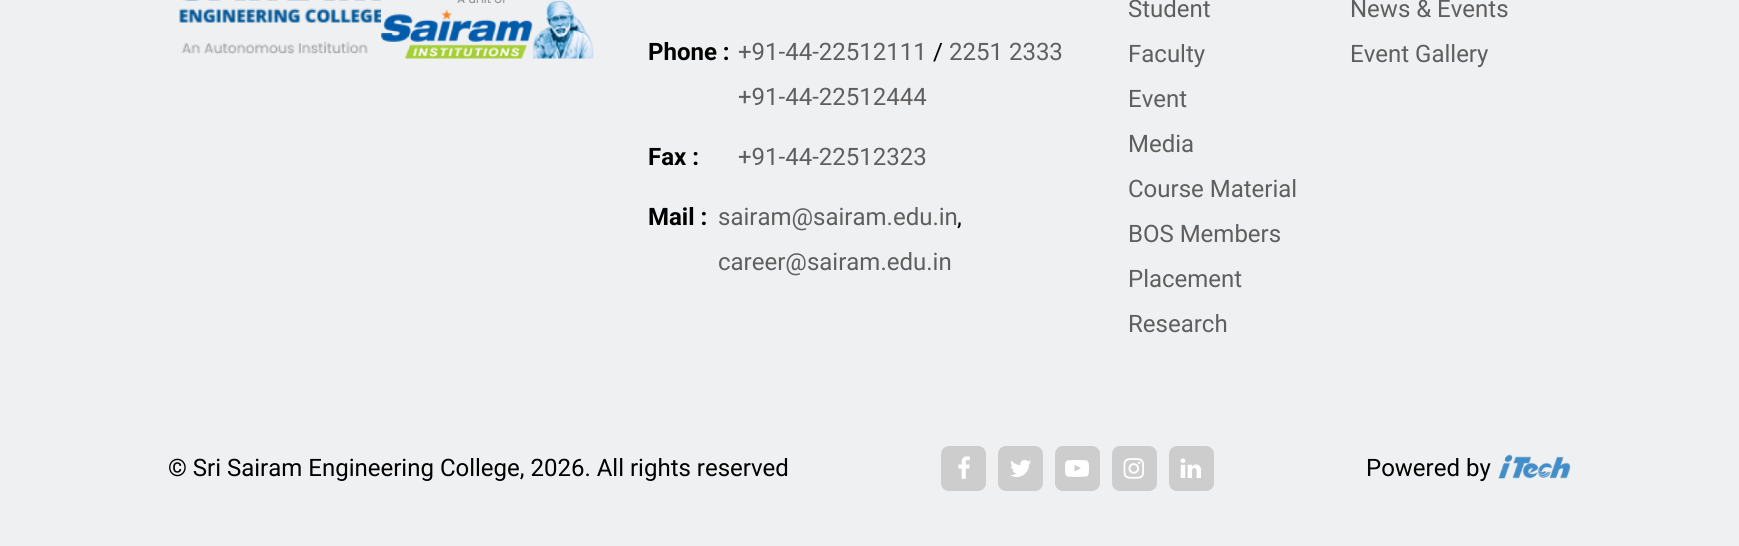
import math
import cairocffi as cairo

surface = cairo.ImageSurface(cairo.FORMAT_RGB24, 1739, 546)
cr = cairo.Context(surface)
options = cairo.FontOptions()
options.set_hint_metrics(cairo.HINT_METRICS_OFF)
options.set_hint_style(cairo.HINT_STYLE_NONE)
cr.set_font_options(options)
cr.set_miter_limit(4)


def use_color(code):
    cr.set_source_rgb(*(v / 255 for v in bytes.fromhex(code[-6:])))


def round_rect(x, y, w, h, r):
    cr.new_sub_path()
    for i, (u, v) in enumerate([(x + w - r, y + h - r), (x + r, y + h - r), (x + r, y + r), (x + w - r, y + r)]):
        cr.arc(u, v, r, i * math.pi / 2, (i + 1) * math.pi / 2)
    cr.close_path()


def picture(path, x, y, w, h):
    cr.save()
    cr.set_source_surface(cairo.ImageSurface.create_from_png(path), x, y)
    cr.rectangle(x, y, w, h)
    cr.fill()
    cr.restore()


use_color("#eff0f1")
cr.paint()
picture("img1.png", 179, 0, 202, 55)
picture("img2.png", 381, 0, 213, 59)
cr.select_font_face("Roboto", cairo.FONT_SLANT_NORMAL, cairo.FONT_WEIGHT_BOLD)
cr.set_font_size(24)
use_color("#000000")
cr.move_to(648, 60)
cr.show_text("Phone :")
cr.select_font_face("Roboto")
use_color("#5f5f5f")
cr.move_to(738, 60)
cr.show_text("+91-44-22512111")
use_color("#000000")
cr.move_to(933, 60)
cr.show_text("/")
use_color("#5f5f5f")
cr.move_to(949, 60)
cr.show_text("2251 2333")
cr.move_to(738, 105)
cr.show_text("+91-44-22512444")
cr.select_font_face("Roboto", cairo.FONT_SLANT_NORMAL, cairo.FONT_WEIGHT_BOLD)
use_color("#000000")
cr.move_to(648, 165)
cr.show_text("Fax :")
cr.select_font_face("Roboto")
use_color("#5f5f5f")
cr.move_to(738, 165)
cr.show_text("+91-44-22512323")
cr.select_font_face("Roboto", cairo.FONT_SLANT_NORMAL, cairo.FONT_WEIGHT_BOLD)
use_color("#000000")
cr.move_to(648, 225)
cr.show_text("Mail :")
cr.select_font_face("Roboto")
use_color("#5f5f5f")
cr.move_to(718, 225)
cr.show_text("sairam@sairam.edu.in")
use_color("#000000")
cr.move_to(957, 225)
cr.show_text(",")
use_color("#5f5f5f")
cr.move_to(718, 270)
cr.show_text("career@sairam.edu.in")
cr.move_to(1128, 17)
cr.show_text("Student")
cr.move_to(1128, 62)
cr.show_text("Faculty")
cr.move_to(1128, 107)
cr.show_text("Event")
cr.move_to(1128, 152)
cr.show_text("Media")
cr.move_to(1128, 197)
cr.show_text("Course Material")
cr.move_to(1128, 242)
cr.show_text("BOS Members")
cr.move_to(1128, 287)
cr.show_text("Placement")
cr.move_to(1128, 332)
cr.show_text("Research")
cr.move_to(1350, 17)
cr.show_text("News & Events")
cr.move_to(1350, 62)
cr.show_text("Event Gallery")
use_color("#000000")
cr.move_to(168, 476)
cr.show_text("© Sri Sairam Engineering College, 2026. All rights reserved")
use_color("#cdcdcd")
round_rect(941, 446, 45, 45, 8)
cr.fill()
picture("img3.png", 958, 456, 12, 23)
round_rect(998, 446, 45, 45, 8)
cr.fill()
picture("img4.png", 1010, 459, 21, 18)
round_rect(1055, 446, 45, 45, 8)
cr.fill()
picture("img5.png", 1065, 460, 24, 17)
round_rect(1112, 446, 45, 45, 8)
cr.fill()
picture("img6.png", 1123, 458, 21, 21)
round_rect(1169, 446, 45, 45, 8)
cr.fill()
picture("img7.png", 1180, 458, 21, 20)
use_color("#000000")
cr.move_to(1366, 476)
cr.show_text("Powered by")
picture("img8.png", 1498, 454, 73, 25)
surface.write_to_png("result.png")
